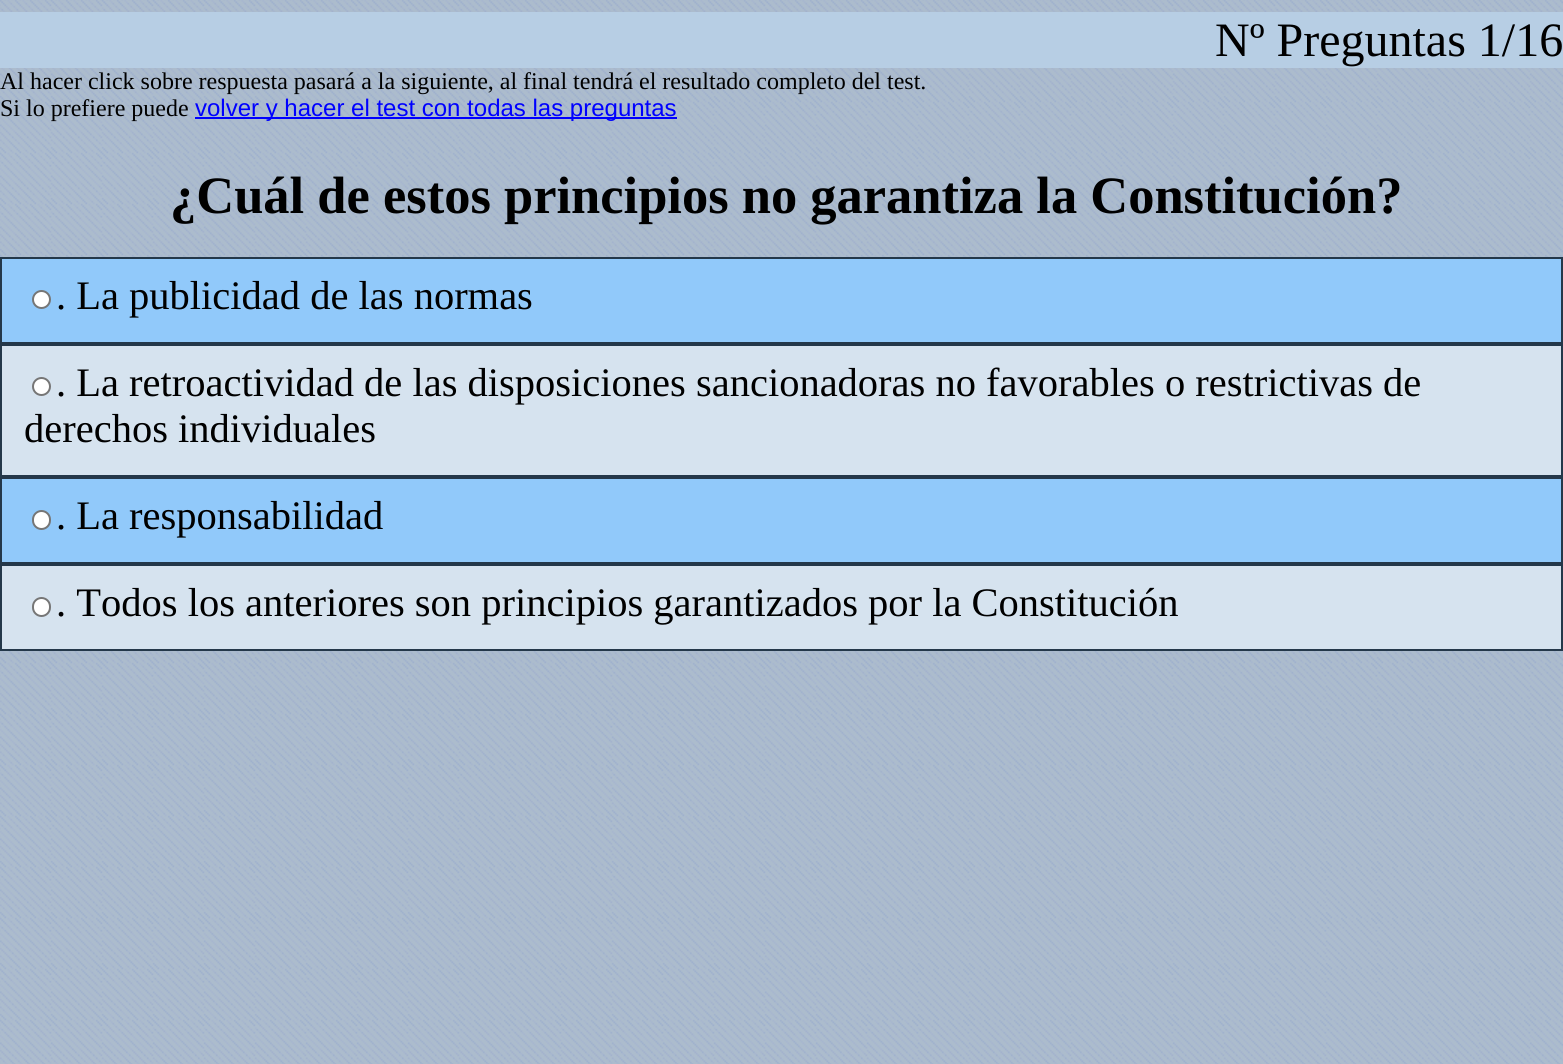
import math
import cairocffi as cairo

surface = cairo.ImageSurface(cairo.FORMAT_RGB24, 1563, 1064)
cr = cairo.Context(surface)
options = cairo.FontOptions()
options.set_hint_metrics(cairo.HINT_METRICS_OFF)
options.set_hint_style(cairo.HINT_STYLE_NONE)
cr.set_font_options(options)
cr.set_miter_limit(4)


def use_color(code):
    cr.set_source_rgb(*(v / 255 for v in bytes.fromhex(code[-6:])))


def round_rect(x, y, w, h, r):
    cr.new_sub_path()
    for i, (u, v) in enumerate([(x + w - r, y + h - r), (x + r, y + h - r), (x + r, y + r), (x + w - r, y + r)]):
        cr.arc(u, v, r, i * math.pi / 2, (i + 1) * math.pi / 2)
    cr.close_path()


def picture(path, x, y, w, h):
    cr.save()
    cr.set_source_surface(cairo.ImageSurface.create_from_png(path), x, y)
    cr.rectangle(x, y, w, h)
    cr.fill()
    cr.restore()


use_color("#ffffff")
cr.paint()
picture("img1.png", 0, 0, 1563, 1064)
use_color("#b7cee4")
cr.rectangle(0, 12, 1563, 56)
cr.fill()
cr.select_font_face("Liberation Serif")
cr.set_font_size(48)
use_color("#000000")
cr.move_to(1215, 56)
cr.show_text("Nº Preguntas 1/16")
cr.set_font_size(24)
cr.move_to(0, 89)
cr.show_text("Al hacer click sobre respuesta pasará a la siguiente, al final tendrá el resultado completo del test.")
cr.move_to(0, 116)
cr.show_text("Si lo prefiere puede")
use_color("#0000ff")
cr.rectangle(195, 117, 482, 2)
cr.fill()
cr.select_font_face("Liberation Sans")
cr.move_to(195, 116)
cr.show_text("volver y hacer el test con todas las preguntas")
cr.select_font_face("Liberation Serif", cairo.FONT_SLANT_NORMAL, cairo.FONT_WEIGHT_BOLD)
cr.set_font_size(52.5)
use_color("#000000")
cr.move_to(170, 213)
cr.show_text("¿Cuál de estos principios no garantiza la Constitución?")
use_color("#91c9fa")
cr.rectangle(1, 258, 1561, 85)
cr.fill_preserve()
use_color("#24384a")
cr.stroke()
use_color("#ffffff")
cr.arc(41.5, 299.5, 8.5, 0, 2 * math.pi)
cr.fill_preserve()
use_color("#767676")
cr.stroke()
cr.select_font_face("Liberation Serif")
cr.set_font_size(40.5)
use_color("#000000")
cr.move_to(56, 309)
cr.show_text(". La publicidad de las normas")
use_color("#d6e3ef")
cr.rectangle(1, 345, 1561, 131)
cr.fill_preserve()
use_color("#24384a")
cr.stroke()
use_color("#ffffff")
cr.arc(41.5, 386.5, 8.5, 0, 2 * math.pi)
cr.fill_preserve()
use_color("#767676")
cr.stroke()
use_color("#000000")
cr.move_to(56, 396)
cr.show_text(". La retroactividad de las disposiciones sancionadoras no favorables o restrictivas de")
cr.move_to(24, 442)
cr.show_text("derechos individuales")
use_color("#91c9fa")
cr.rectangle(1, 478, 1561, 85)
cr.fill_preserve()
use_color("#24384a")
cr.stroke()
use_color("#ffffff")
round_rect(33, 511, 17, 18, 8.5)
cr.fill_preserve()
use_color("#767676")
cr.stroke()
use_color("#000000")
cr.move_to(56, 529)
cr.show_text(". La responsabilidad")
use_color("#d6e3ef")
cr.rectangle(1, 565, 1561, 85)
cr.fill_preserve()
use_color("#24384a")
cr.stroke()
use_color("#ffffff")
round_rect(33, 598, 17, 18, 8.5)
cr.fill_preserve()
use_color("#767676")
cr.stroke()
use_color("#000000")
cr.move_to(56, 616)
cr.show_text(". Todos los anteriores son principios garantizados por la Constitución")
surface.write_to_png("result.png")
